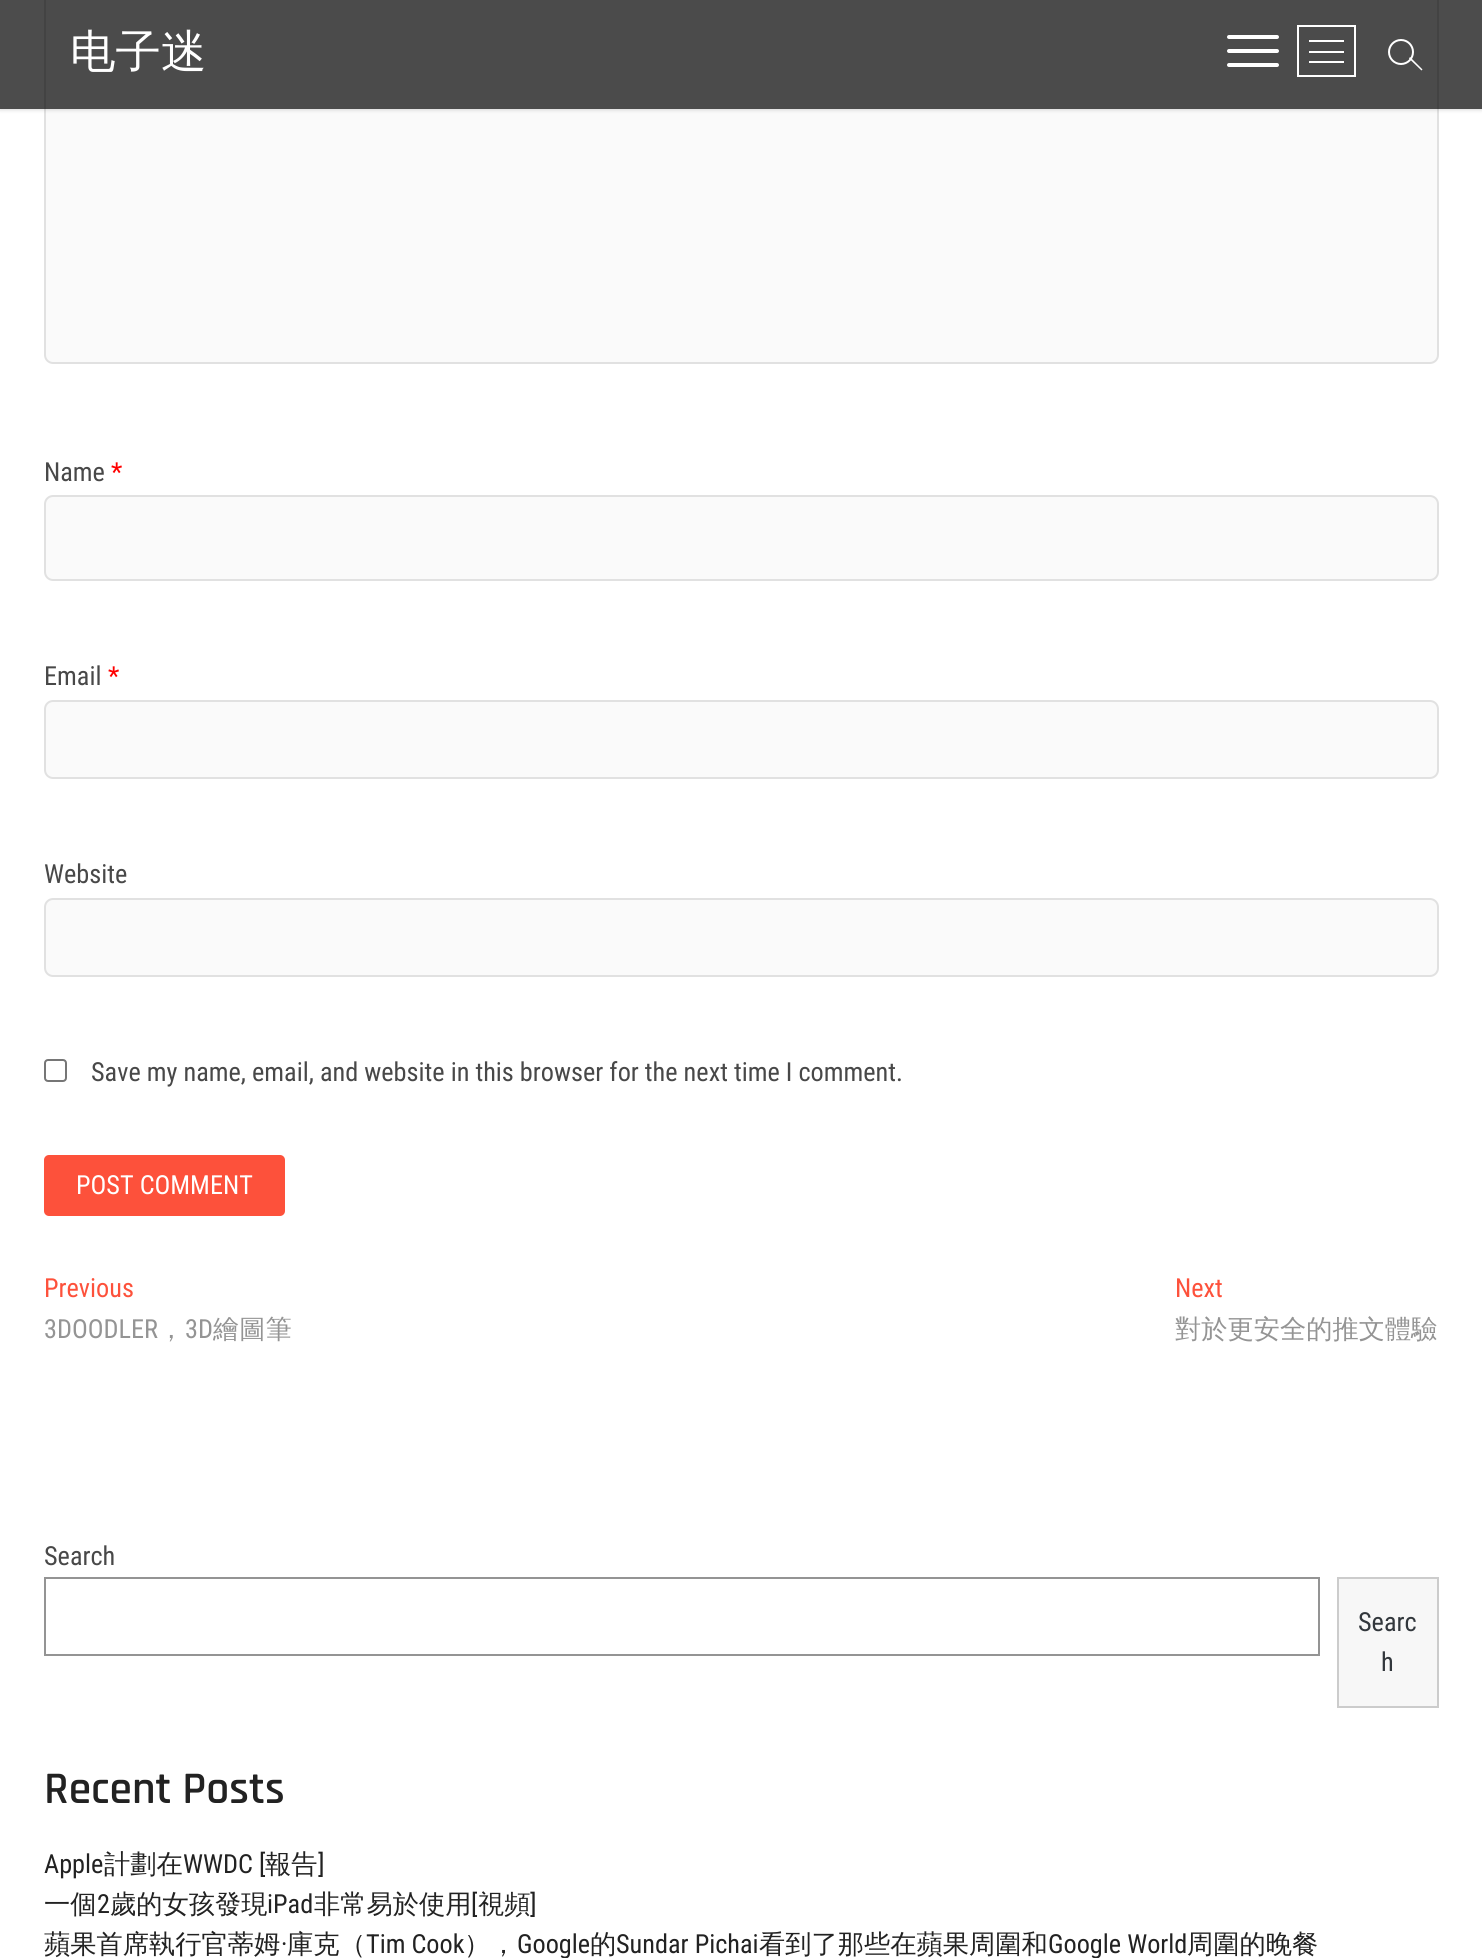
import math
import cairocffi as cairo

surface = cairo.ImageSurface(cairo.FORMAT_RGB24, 1482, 1958)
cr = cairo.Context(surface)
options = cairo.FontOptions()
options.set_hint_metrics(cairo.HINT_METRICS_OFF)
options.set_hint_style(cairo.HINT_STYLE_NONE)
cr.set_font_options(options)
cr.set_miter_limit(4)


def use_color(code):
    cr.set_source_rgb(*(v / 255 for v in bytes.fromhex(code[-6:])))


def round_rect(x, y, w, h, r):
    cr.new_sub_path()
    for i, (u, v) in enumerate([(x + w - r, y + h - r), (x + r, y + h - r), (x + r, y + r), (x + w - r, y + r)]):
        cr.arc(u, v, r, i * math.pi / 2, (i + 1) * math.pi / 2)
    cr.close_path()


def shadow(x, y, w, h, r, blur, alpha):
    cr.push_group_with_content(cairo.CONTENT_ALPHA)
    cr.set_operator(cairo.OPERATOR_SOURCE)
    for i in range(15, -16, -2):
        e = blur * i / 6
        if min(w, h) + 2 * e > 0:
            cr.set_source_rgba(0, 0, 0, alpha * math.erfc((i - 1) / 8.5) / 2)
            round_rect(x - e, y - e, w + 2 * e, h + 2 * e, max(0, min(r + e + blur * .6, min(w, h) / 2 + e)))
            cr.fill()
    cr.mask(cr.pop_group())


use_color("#ffffff")
cr.paint()
use_color("#fafafa")
round_rect(45, -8, 1393, 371, 8)
cr.fill_preserve()
use_color("#e1e1e1")
cr.stroke()
cr.save()
cr.set_fill_rule(cairo.FILL_RULE_EVEN_ODD)
cr.new_path()
cr.move_to(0, 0)
cr.line_to(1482, 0)
cr.line_to(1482, 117)
cr.line_to(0, 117)
cr.close_path()
cr.move_to(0, 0)
cr.line_to(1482, 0)
cr.line_to(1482, 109)
cr.line_to(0, 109)
cr.close_path()
cr.clip()
use_color("#000000")
shadow(0, 2, 1482, 108, 0, 2, 0.15)
cr.restore()
cr.set_source_rgba(0, 0, 0, 0.7)
cr.rectangle(0, 0, 1482, 109)
cr.fill()
cr.select_font_face("WenQuanYi Zen Hei Medium")
cr.set_font_size(45.5)
use_color("#ffffff")
cr.move_to(70, 67)
cr.show_text("电子迷")
round_rect(1227, 49, 52, 4, 2)
cr.fill()
round_rect(1227, 35, 52, 4, 2)
cr.fill()
round_rect(1227, 63, 52, 4, 2)
cr.fill()
cr.rectangle(1298, 26, 57, 50)
cr.stroke()
cr.rectangle(1309, 51, 35, 2)
cr.fill()
cr.rectangle(1309, 40, 35, 2)
cr.fill()
cr.rectangle(1309, 61, 35, 2)
cr.fill()
cr.arc(1401, 52, 12, 0, 2 * math.pi)
cr.stroke()
cr.new_path()
cr.move_to(1409, 58.5)
cr.line_to(1410, 57)
cr.line_to(1422.5, 69.5)
cr.line_to(1421.5, 70.5)
cr.close_path()
cr.fill()
cr.select_font_face("Roboto Condensed")
cr.set_font_size(26.25)
use_color("#484848")
cr.move_to(44, 481)
cr.show_text("Name")
use_color("#ff0000")
cr.move_to(111, 481)
cr.show_text("*")
use_color("#fafafa")
round_rect(45, 496, 1393, 84, 8)
cr.fill_preserve()
use_color("#e1e1e1")
cr.stroke()
use_color("#484848")
cr.move_to(44, 685)
cr.show_text("Email")
use_color("#ff0000")
cr.move_to(108, 685)
cr.show_text("*")
use_color("#fafafa")
round_rect(45, 701, 1393, 77, 8)
cr.fill_preserve()
use_color("#e1e1e1")
cr.stroke()
use_color("#484848")
cr.move_to(44, 883)
cr.show_text("Website")
use_color("#fafafa")
round_rect(45, 899, 1393, 77, 8)
cr.fill_preserve()
use_color("#e1e1e1")
cr.stroke()
round_rect(45, 1060, 21, 21, 3)
use_color("#767676")
cr.stroke()
use_color("#484848")
cr.move_to(91, 1081)
cr.show_text("Save my name, email, and website in this browser for the next time I comment.")
use_color("#fd513b")
round_rect(44, 1155, 241, 61, 5)
cr.fill()
use_color("#ffffff")
cr.move_to(76, 1194)
cr.show_text("POST COMMENT")
use_color("#fd513b")
cr.move_to(44, 1297)
cr.show_text("Previous")
use_color("#949494")
cr.move_to(44, 1338)
cr.show_text("3DOODLER")
cr.select_font_face("WenQuanYi Zen Hei Medium")
cr.move_to(158, 1338)
cr.show_text("，")
cr.select_font_face("Roboto Condensed")
cr.move_to(185, 1338)
cr.show_text("3D")
cr.select_font_face("WenQuanYi Zen Hei Medium")
cr.move_to(213, 1338)
cr.show_text("繪圖筆")
cr.select_font_face("Roboto Condensed")
use_color("#fd513b")
cr.move_to(1175, 1297)
cr.show_text("Next")
cr.select_font_face("WenQuanYi Zen Hei Medium")
use_color("#949494")
cr.move_to(1175, 1338)
cr.show_text("對於更安全的推文體驗")
cr.select_font_face("Roboto Condensed")
use_color("#484848")
cr.move_to(44, 1565)
cr.show_text("Search")
cr.rectangle(45, 1578, 1274, 77)
use_color("#949494")
cr.stroke()
use_color("#f7f7f7")
cr.rectangle(1338, 1578, 100, 129)
cr.fill_preserve()
use_color("#cccccc")
cr.stroke()
use_color("#32373c")
cr.move_to(1358, 1631)
cr.show_text("Searc")
cr.move_to(1381, 1671)
cr.show_text("h")
cr.select_font_face("Rajdhani SemiBold")
cr.set_font_size(45.5)
use_color("#222222")
cr.move_to(44, 1803)
cr.show_text("Recent Posts")
cr.select_font_face("Roboto Condensed")
cr.set_font_size(26.25)
cr.move_to(44, 1873)
cr.show_text("Apple")
cr.select_font_face("WenQuanYi Zen Hei Medium")
cr.move_to(104, 1873)
cr.show_text("計劃在")
cr.select_font_face("Roboto Condensed")
cr.move_to(183, 1873)
cr.show_text("WWDC [")
cr.select_font_face("WenQuanYi Zen Hei Medium")
cr.move_to(265, 1873)
cr.show_text("報告")
cr.select_font_face("Roboto Condensed")
cr.move_to(318, 1873)
cr.show_text("]")
cr.select_font_face("WenQuanYi Zen Hei Medium")
cr.move_to(44, 1913)
cr.show_text("一個")
cr.select_font_face("Roboto Condensed")
cr.move_to(97, 1913)
cr.show_text("2")
cr.select_font_face("WenQuanYi Zen Hei Medium")
cr.move_to(110, 1913)
cr.show_text("歲的女孩發現")
cr.select_font_face("Roboto Condensed")
cr.move_to(267, 1913)
cr.show_text("iPad")
cr.select_font_face("WenQuanYi Zen Hei Medium")
cr.move_to(314, 1913)
cr.show_text("非常易於使用")
cr.select_font_face("Roboto Condensed")
cr.move_to(471, 1913)
cr.show_text("[")
cr.select_font_face("WenQuanYi Zen Hei Medium")
cr.move_to(478, 1913)
cr.show_text("視頻")
cr.select_font_face("Roboto Condensed")
cr.move_to(530, 1913)
cr.show_text("]")
cr.select_font_face("WenQuanYi Zen Hei Medium")
cr.move_to(44, 1953)
cr.show_text("蘋果首席執行官蒂姆")
cr.select_font_face("Roboto Condensed")
cr.move_to(281, 1953)
cr.show_text("·")
cr.select_font_face("WenQuanYi Zen Hei Medium")
cr.move_to(287, 1953)
cr.show_text("庫克（")
cr.select_font_face("Roboto Condensed")
cr.move_to(366, 1953)
cr.show_text("Tim Cook")
cr.select_font_face("WenQuanYi Zen Hei Medium")
cr.move_to(464, 1953)
cr.show_text("），")
cr.select_font_face("Roboto Condensed")
cr.move_to(517, 1953)
cr.show_text("Google")
cr.select_font_face("WenQuanYi Zen Hei Medium")
cr.move_to(590, 1953)
cr.show_text("的")
cr.select_font_face("Roboto Condensed")
cr.move_to(616, 1953)
cr.show_text("Sundar Pichai")
cr.select_font_face("WenQuanYi Zen Hei Medium")
cr.move_to(759, 1953)
cr.show_text("看到了那些在蘋果周圍和")
cr.select_font_face("Roboto Condensed")
cr.move_to(1048, 1953)
cr.show_text("Google World")
cr.select_font_face("WenQuanYi Zen Hei Medium")
cr.move_to(1187, 1953)
cr.show_text("周圍的晚餐")
surface.write_to_png("result.png")
